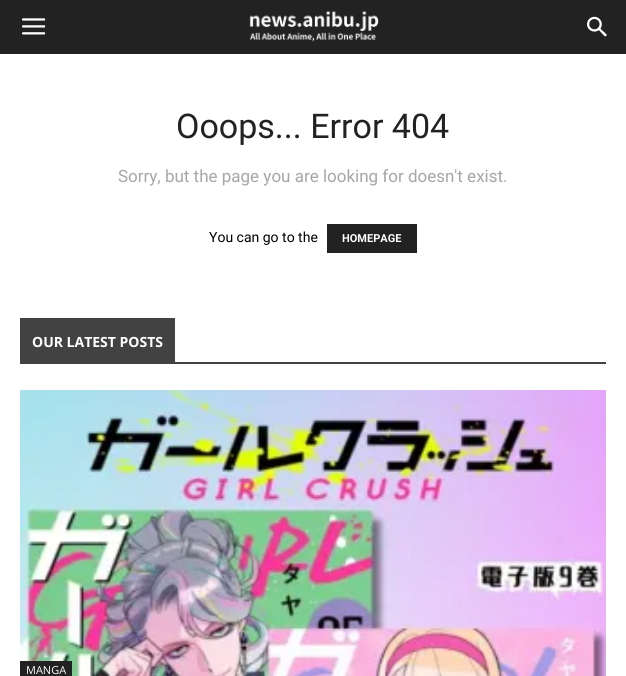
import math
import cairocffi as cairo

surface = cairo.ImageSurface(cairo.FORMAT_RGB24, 626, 676)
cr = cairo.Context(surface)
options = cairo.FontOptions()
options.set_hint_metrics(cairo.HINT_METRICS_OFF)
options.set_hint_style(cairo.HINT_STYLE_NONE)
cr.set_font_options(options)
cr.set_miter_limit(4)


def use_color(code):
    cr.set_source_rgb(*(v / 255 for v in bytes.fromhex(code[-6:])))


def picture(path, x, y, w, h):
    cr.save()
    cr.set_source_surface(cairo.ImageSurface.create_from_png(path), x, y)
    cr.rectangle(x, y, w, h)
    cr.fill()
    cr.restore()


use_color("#ffffff")
cr.paint()
use_color("#222222")
cr.rectangle(0, 0, 626, 54)
cr.fill()
picture("img1.png", 22, 18, 24, 17)
picture("img2.png", 249, 10, 130, 32)
picture("img3.png", 587, 16, 20, 21)
cr.select_font_face("Roboto")
cr.set_font_size(34)
cr.move_to(176, 138)
cr.show_text("Ooops... Error 404")
cr.set_font_size(17)
use_color("#a6a6a6")
cr.move_to(118, 182)
cr.show_text("Sorry, but the page you are looking for doesn't exist.")
cr.set_font_size(14)
use_color("#000000")
cr.move_to(209, 242)
cr.show_text("You can go to the")
use_color("#222222")
cr.rectangle(327, 224, 90, 29)
cr.fill()
cr.select_font_face("Roboto", cairo.FONT_SLANT_NORMAL, cairo.FONT_WEIGHT_BOLD)
cr.set_font_size(11)
use_color("#ffffff")
cr.move_to(342, 242)
cr.show_text("HOMEPAGE")
use_color("#424242")
cr.rectangle(20, 362, 586, 2)
cr.fill()
cr.rectangle(20, 318, 155, 44)
cr.fill()
cr.select_font_face("Open Sans", cairo.FONT_SLANT_NORMAL, cairo.FONT_WEIGHT_BOLD)
cr.set_font_size(14)
use_color("#ffffff")
cr.move_to(32, 347)
cr.show_text("OUR LATEST POSTS")
picture("img4.png", 20, 390, 586, 286)
use_color("#222222")
cr.rectangle(20, 661, 52, 15)
cr.fill()
cr.select_font_face("Open Sans")
cr.set_font_size(11)
use_color("#ffffff")
cr.move_to(26, 674)
cr.show_text("MANGA")
surface.write_to_png("result.png")
